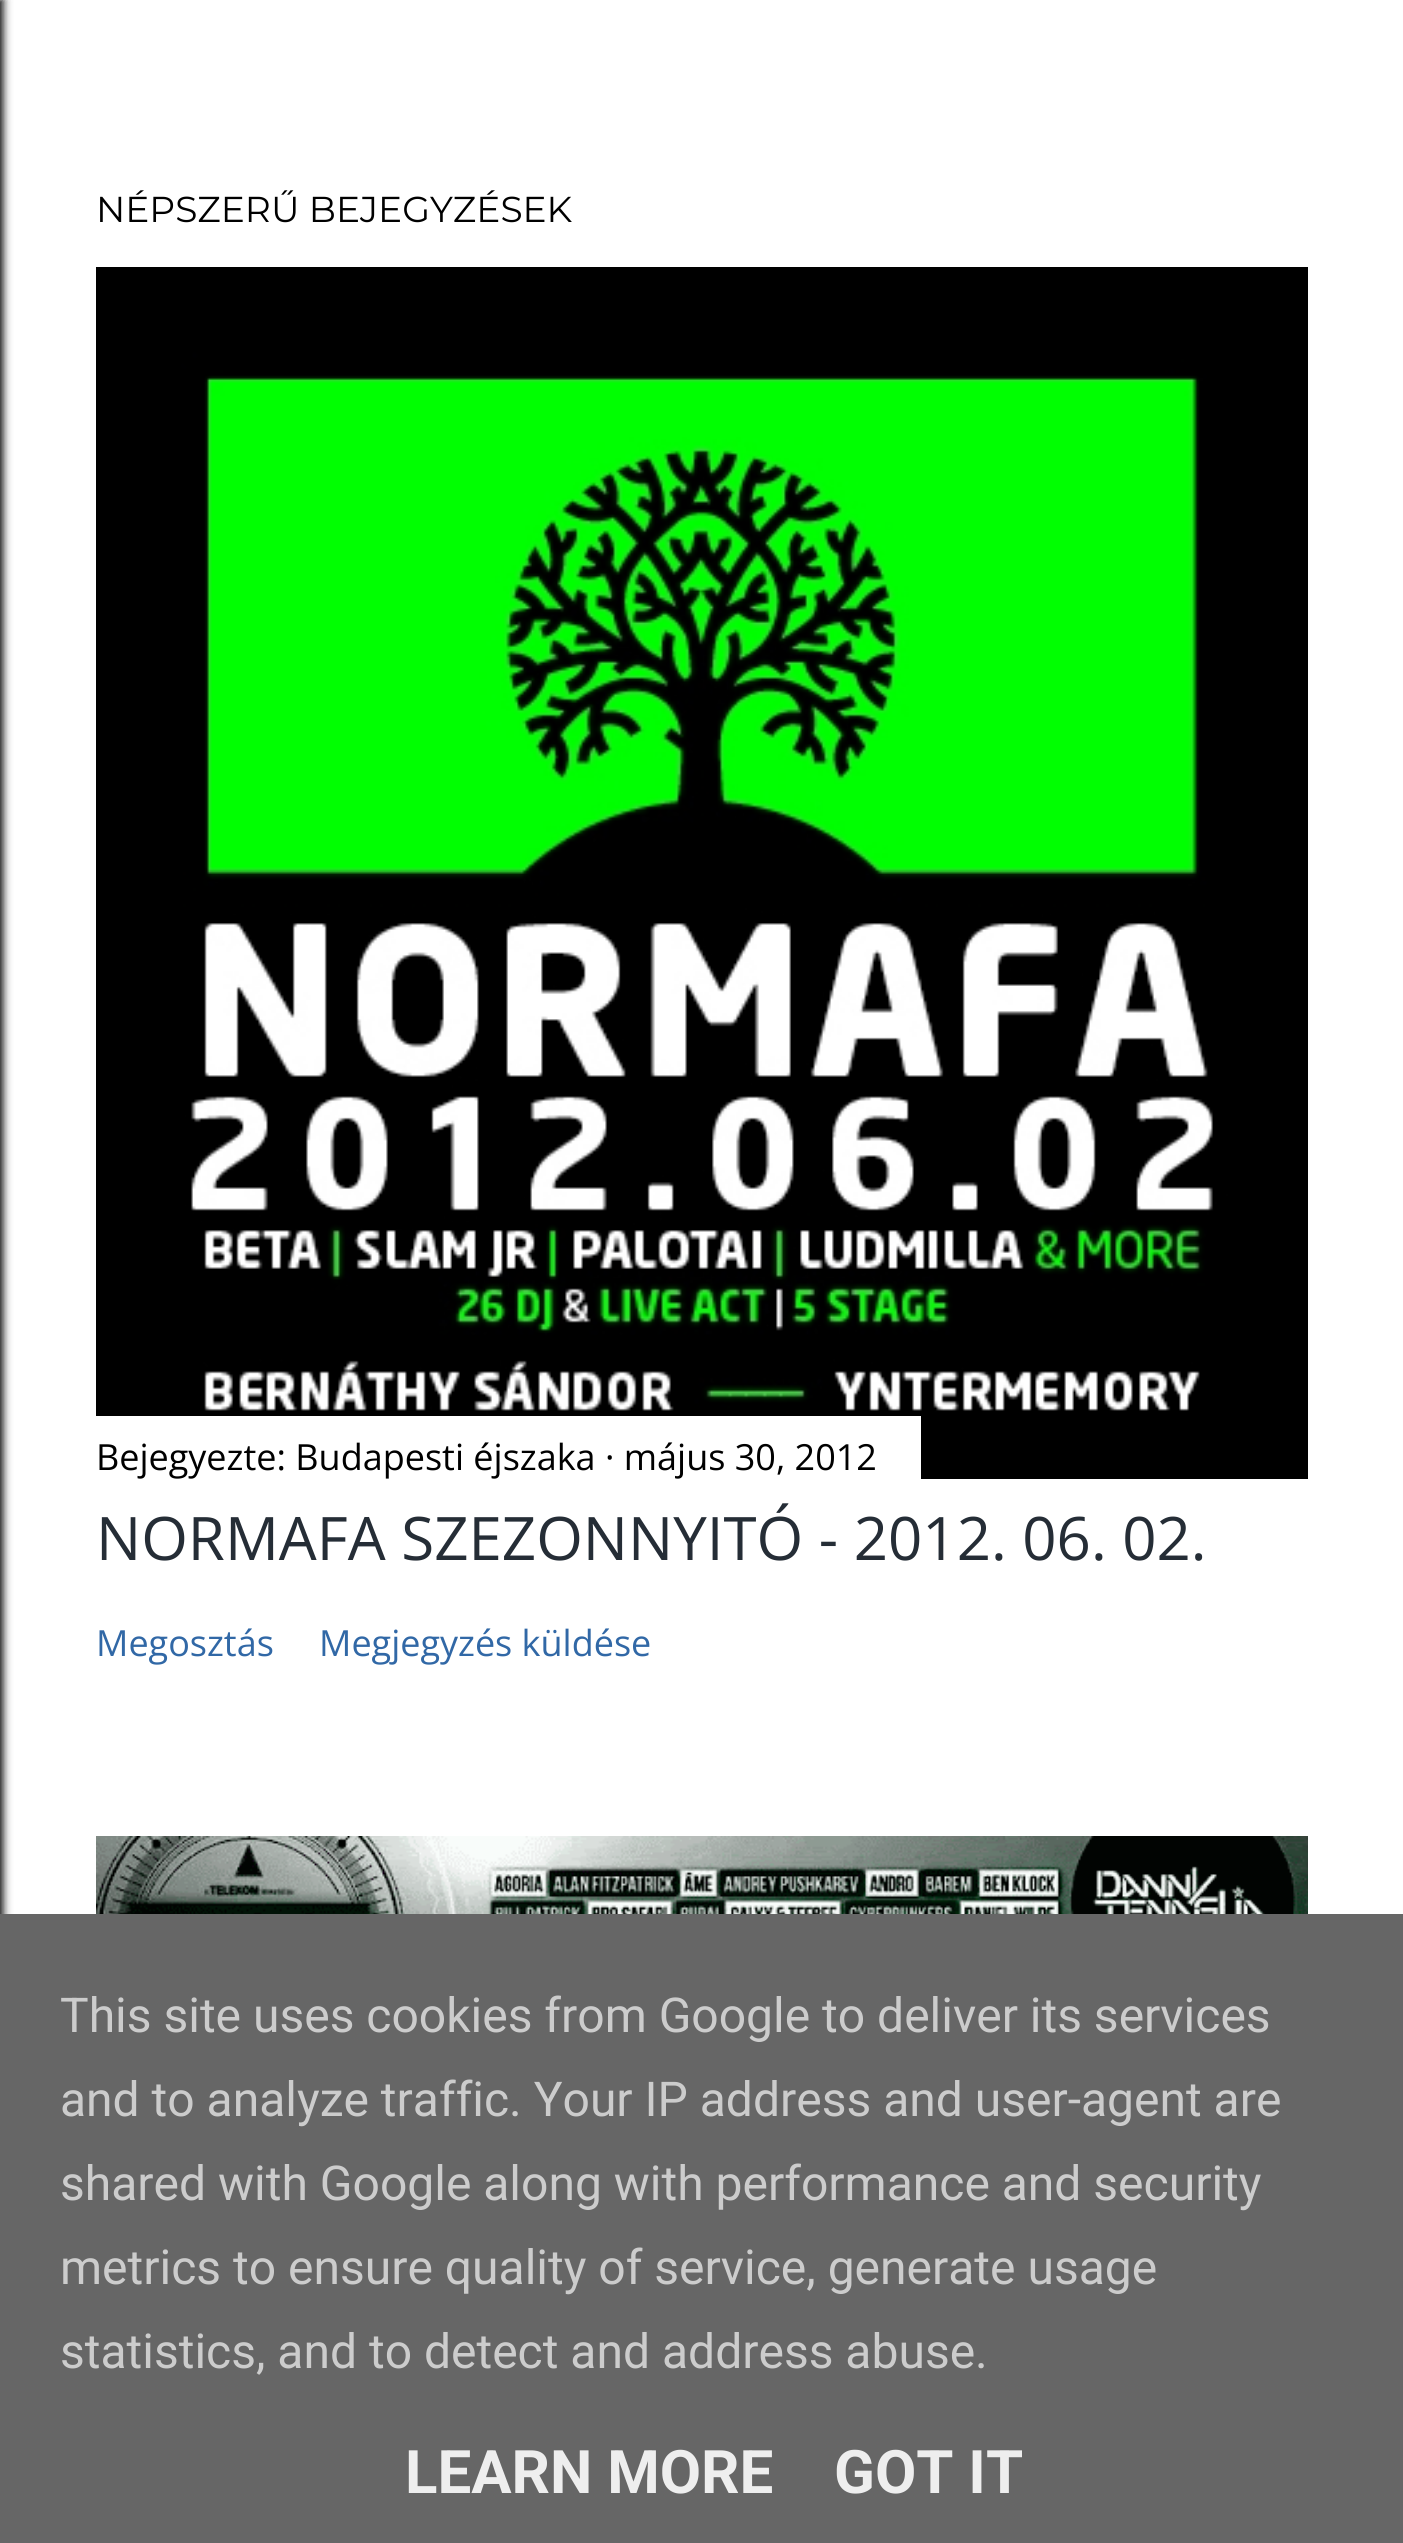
import math
import cairocffi as cairo

surface = cairo.ImageSurface(cairo.FORMAT_RGB24, 1403, 2543)
cr = cairo.Context(surface)
options = cairo.FontOptions()
options.set_hint_metrics(cairo.HINT_METRICS_OFF)
options.set_hint_style(cairo.HINT_STYLE_NONE)
cr.set_font_options(options)
cr.set_miter_limit(4)


def use_color(code):
    cr.set_source_rgb(*(v / 255 for v in bytes.fromhex(code[-6:])))


def round_rect(x, y, w, h, r):
    cr.new_sub_path()
    for i, (u, v) in enumerate([(x + w - r, y + h - r), (x + r, y + h - r), (x + r, y + r), (x + w - r, y + r)]):
        cr.arc(u, v, r, i * math.pi / 2, (i + 1) * math.pi / 2)
    cr.close_path()


def shadow(x, y, w, h, r, blur, alpha):
    cr.push_group_with_content(cairo.CONTENT_ALPHA)
    cr.set_operator(cairo.OPERATOR_SOURCE)
    for i in range(15, -16, -2):
        e = blur * i / 6
        if min(w, h) + 2 * e > 0:
            cr.set_source_rgba(0, 0, 0, alpha * math.erfc((i - 1) / 8.5) / 2)
            round_rect(x - e, y - e, w + 2 * e, h + 2 * e, max(0, min(r + e + blur * .6, min(w, h) / 2 + e)))
            cr.fill()
    cr.mask(cr.pop_group())


def picture(path, x, y, w, h):
    cr.save()
    cr.set_source_surface(cairo.ImageSurface.create_from_png(path), x, y)
    cr.rectangle(x, y, w, h)
    cr.fill()
    cr.restore()


use_color("#ffffff")
cr.paint()
use_color("#000000")
shadow(-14, 0, 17, 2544, 0, 4.5, 1)
cr.select_font_face("Montserrat")
cr.set_font_size(36)
use_color("#000000")
cr.move_to(96, 222)
cr.show_text("NÉPSZERŰ BEJEGYZÉSEK")
picture("img1.png", 96, 267, 1212, 1212)
use_color("#ffffff")
cr.rectangle(96, 1416, 825, 63)
cr.fill()
cr.select_font_face("Open Sans")
use_color("#000000")
cr.move_to(96, 1470)
cr.show_text("Bejegyezte: Budapesti éjszaka · május 30, 2012")
cr.set_font_size(60)
use_color("#252d36")
cr.move_to(96, 1560)
cr.show_text("NORMAFA SZEZONNYITÓ - 2012. 06. 02.")
cr.set_font_size(36)
use_color("#3168a6")
cr.move_to(96, 1656)
cr.show_text("Megosztás")
cr.move_to(319, 1656)
cr.show_text("Megjegyzés küldése")
picture("img2.png", 96, 1836, 1212, 78)
use_color("#666666")
cr.rectangle(0, 1914, 1403, 629)
cr.fill()
cr.select_font_face("Roboto")
cr.set_font_size(48)
use_color("#cccccc")
cr.move_to(60, 2032)
cr.show_text("This site uses cookies from Google to deliver its services")
cr.move_to(60, 2116)
cr.show_text("and to analyze traffic. Your IP address and user-agent are")
cr.move_to(60, 2200)
cr.show_text("shared with Google along with performance and security")
cr.move_to(60, 2284)
cr.show_text("metrics to ensure quality of service, generate usage")
cr.move_to(60, 2368)
cr.show_text("statistics, and to detect and address abuse.")
cr.select_font_face("Roboto", cairo.FONT_SLANT_NORMAL, cairo.FONT_WEIGHT_BOLD)
cr.set_font_size(60)
use_color("#eeeeee")
cr.move_to(405, 2493)
cr.show_text("LEARN MORE")
cr.move_to(834, 2493)
cr.show_text("GOT IT")
surface.write_to_png("result.png")
